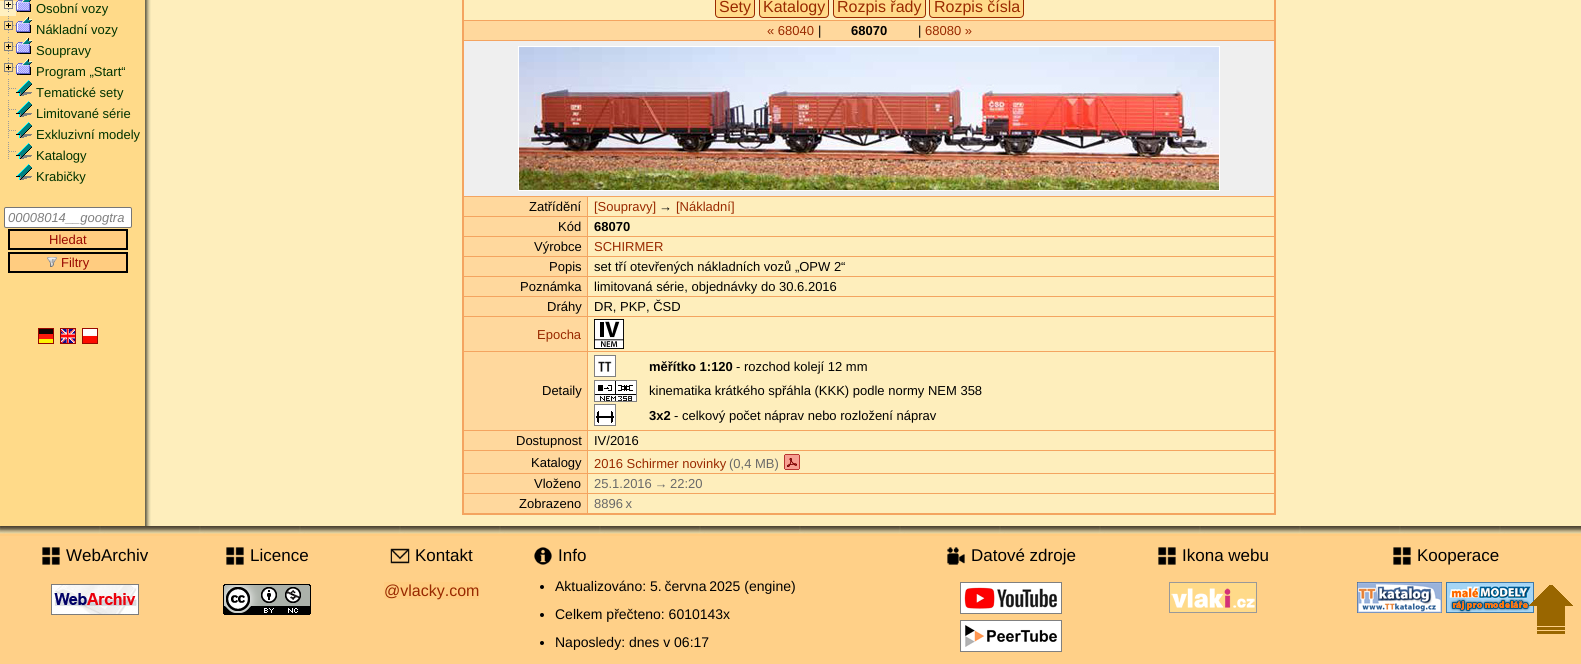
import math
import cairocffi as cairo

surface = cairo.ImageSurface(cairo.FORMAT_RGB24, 1581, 664)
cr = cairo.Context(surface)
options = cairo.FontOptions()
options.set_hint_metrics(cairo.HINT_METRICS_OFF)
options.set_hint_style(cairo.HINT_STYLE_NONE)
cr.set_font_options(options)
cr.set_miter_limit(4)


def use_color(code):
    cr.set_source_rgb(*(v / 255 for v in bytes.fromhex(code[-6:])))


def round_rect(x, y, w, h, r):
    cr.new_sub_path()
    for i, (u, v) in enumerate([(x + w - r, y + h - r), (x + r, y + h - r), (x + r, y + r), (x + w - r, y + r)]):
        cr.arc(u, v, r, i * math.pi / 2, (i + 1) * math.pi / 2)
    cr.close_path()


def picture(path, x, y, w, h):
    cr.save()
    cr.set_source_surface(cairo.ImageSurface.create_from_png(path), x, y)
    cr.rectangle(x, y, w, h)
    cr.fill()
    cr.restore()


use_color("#feeebc")
cr.paint()
use_color("#ffda89")
cr.rectangle(0, 0, 144, 526)
cr.fill()
use_color("#fff0c0")
cr.rectangle(0, 1, 16, 15)
cr.fill()
picture("img1.png", 4, 0, 12, 12)
picture("img2.png", 16, 0, 15, 12)
cr.select_font_face("Liberation Sans")
cr.set_font_size(13)
use_color("#003300")
cr.move_to(36, 13)
cr.show_text("Osobní vozy")
picture("img3.png", 4, 16, 12, 17)
picture("img4.png", 16, 17, 16, 16)
cr.move_to(36, 34)
cr.show_text("Nákladní vozy")
picture("img3.png", 4, 37, 12, 17)
picture("img4.png", 16, 38, 16, 16)
cr.move_to(36, 55)
cr.show_text("Soupravy")
picture("img3.png", 4, 58, 12, 17)
picture("img4.png", 16, 59, 16, 16)
cr.move_to(36, 76)
cr.show_text("Program „Start“")
picture("img5.png", 8, 79, 8, 17)
picture("img6.png", 16, 80, 16, 16)
cr.move_to(36, 97)
cr.show_text("Tematické sety")
picture("img5.png", 8, 100, 8, 17)
picture("img6.png", 16, 101, 16, 16)
cr.move_to(36, 118)
cr.show_text("Limitované série")
picture("img5.png", 8, 121, 8, 17)
picture("img6.png", 16, 122, 16, 16)
cr.move_to(36, 139)
cr.show_text("Exkluzivní modely")
picture("img5.png", 8, 142, 8, 17)
picture("img6.png", 16, 143, 16, 16)
cr.move_to(36, 160)
cr.show_text("Katalogy")
picture("img6.png", 16, 164, 16, 16)
cr.move_to(36, 181)
cr.show_text("Krabičky")
use_color("#ffffff")
round_rect(4.5, 207.5, 127, 20, 1.5)
cr.fill_preserve()
use_color("#767676")
cr.set_line_width(1)
cr.stroke()
cr.select_font_face("Liberation Sans", cairo.FONT_SLANT_ITALIC)
use_color("#808080")
cr.move_to(8, 222)
cr.show_text("00008014__googtra")
use_color("#ffcc80")
cr.rectangle(9, 230, 118, 19)
cr.fill_preserve()
use_color("#000000")
cr.set_line_width(2)
cr.stroke()
cr.select_font_face("Liberation Sans")
use_color("#990800")
cr.move_to(49, 244)
cr.show_text("Hledat")
use_color("#ffcc80")
cr.rectangle(9, 253, 118, 19)
cr.fill_preserve()
use_color("#000000")
cr.stroke()
picture("img7.png", 47, 257, 10, 10)
use_color("#990800")
cr.move_to(61, 267)
cr.show_text("Filtry")
cr.rectangle(38.5, 328.5, 15, 15)
cr.set_line_width(1)
cr.stroke()
cr.rectangle(60.5, 328.5, 15, 15)
cr.stroke()
cr.rectangle(82.5, 328.5, 15, 15)
cr.stroke()
picture("img8.png", 39, 329, 14, 14)
picture("img9.png", 61, 329, 14, 14)
picture("img10.png", 83, 329, 14, 14)
picture("img11.png", 144, 0, 7, 526)
use_color("#f4a460")
cr.rectangle(463, 20, 813, 1)
cr.fill()
cr.rectangle(463, 40, 813, 1)
cr.fill()
cr.rectangle(587, 196, 689, 1)
cr.fill()
cr.rectangle(587, 216, 689, 1)
cr.fill()
cr.rectangle(587, 236, 689, 1)
cr.fill()
cr.rectangle(587, 256, 689, 1)
cr.fill()
cr.rectangle(587, 276, 689, 1)
cr.fill()
cr.rectangle(587, 296, 689, 1)
cr.fill()
cr.rectangle(587, 316, 689, 1)
cr.fill()
cr.rectangle(587, 351, 689, 1)
cr.fill()
cr.rectangle(587, 430, 689, 1)
cr.fill()
cr.rectangle(587, 450, 689, 1)
cr.fill()
cr.rectangle(587, 473, 689, 1)
cr.fill()
cr.rectangle(587, 493, 689, 1)
cr.fill()
cr.rectangle(1274, 0, 2, 515)
cr.fill()
cr.rectangle(587, 493, 1, 22)
cr.fill()
cr.rectangle(462, 513, 814, 2)
cr.fill()
cr.rectangle(463, 493, 125, 1)
cr.fill()
cr.rectangle(587, 473, 1, 21)
cr.fill()
cr.rectangle(463, 473, 125, 1)
cr.fill()
cr.rectangle(587, 450, 1, 24)
cr.fill()
cr.rectangle(463, 450, 125, 1)
cr.fill()
cr.rectangle(587, 430, 1, 21)
cr.fill()
cr.rectangle(463, 430, 125, 1)
cr.fill()
cr.rectangle(587, 351, 1, 80)
cr.fill()
cr.rectangle(463, 351, 125, 1)
cr.fill()
cr.rectangle(587, 316, 1, 36)
cr.fill()
cr.rectangle(463, 316, 125, 1)
cr.fill()
cr.rectangle(587, 296, 1, 21)
cr.fill()
cr.rectangle(463, 296, 125, 1)
cr.fill()
cr.rectangle(587, 276, 1, 21)
cr.fill()
cr.rectangle(463, 276, 125, 1)
cr.fill()
cr.rectangle(587, 256, 1, 21)
cr.fill()
cr.rectangle(463, 256, 125, 1)
cr.fill()
cr.rectangle(587, 236, 1, 21)
cr.fill()
cr.rectangle(463, 236, 125, 1)
cr.fill()
cr.rectangle(587, 216, 1, 21)
cr.fill()
cr.rectangle(463, 216, 125, 1)
cr.fill()
cr.rectangle(587, 196, 1, 21)
cr.fill()
cr.rectangle(463, 196, 125, 1)
cr.fill()
cr.rectangle(462, 0, 2, 515)
cr.fill()
use_color("#ffda89")
round_rect(715.5, -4.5, 39, 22, 3.5)
cr.fill_preserve()
use_color("#992900")
cr.stroke()
cr.set_font_size(16)
cr.move_to(719, 12)
cr.show_text("Sety")
use_color("#ffda89")
round_rect(759.5, -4.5, 69, 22, 3.5)
cr.fill_preserve()
use_color("#992900")
cr.stroke()
cr.move_to(763, 12)
cr.show_text("Katalogy")
use_color("#ffda89")
round_rect(833.5, -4.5, 92, 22, 3.5)
cr.fill_preserve()
use_color("#992900")
cr.stroke()
cr.move_to(837, 12)
cr.show_text("Rozpis řady")
use_color("#ffda89")
round_rect(929.5, -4.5, 94, 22, 3.5)
cr.fill_preserve()
use_color("#992900")
cr.stroke()
cr.move_to(934, 12)
cr.show_text("Rozpis čísla")
use_color("#ffd89d")
cr.rectangle(464, 21, 810, 19)
cr.fill()
cr.set_font_size(13)
use_color("#992900")
cr.move_to(767, 35)
cr.show_text("« 68040")
use_color("#000000")
cr.move_to(818, 35)
cr.show_text("|")
cr.select_font_face("Liberation Sans", cairo.FONT_SLANT_NORMAL, cairo.FONT_WEIGHT_BOLD)
cr.move_to(851, 35)
cr.show_text("68070")
cr.select_font_face("Liberation Sans")
cr.move_to(918, 35)
cr.show_text("|")
use_color("#992900")
cr.move_to(925, 35)
cr.show_text("68080 »")
use_color("#efefef")
cr.rectangle(464, 41, 810, 155)
cr.fill()
use_color("#ffffff")
cr.rectangle(518, 46, 702, 145)
cr.fill()
picture("img12.png", 519, 47, 700, 143)
use_color("#ffd89d")
cr.rectangle(464, 197, 123, 19)
cr.fill()
use_color("#000000")
cr.move_to(529, 211)
cr.show_text("Zatřídění")
use_color("#992900")
cr.move_to(594, 211)
cr.show_text("[Soupravy]")
use_color("#000000")
cr.move_to(659, 211)
cr.show_text("→")
use_color("#992900")
cr.move_to(676, 211)
cr.show_text("[Nákladní]")
use_color("#ffd89d")
cr.rectangle(464, 217, 123, 19)
cr.fill()
use_color("#000000")
cr.move_to(558, 231)
cr.show_text("Kód")
cr.select_font_face("Liberation Sans", cairo.FONT_SLANT_NORMAL, cairo.FONT_WEIGHT_BOLD)
cr.move_to(594, 231)
cr.show_text("68070")
use_color("#ffd89d")
cr.rectangle(464, 237, 123, 19)
cr.fill()
cr.select_font_face("Liberation Sans")
use_color("#000000")
cr.move_to(534, 251)
cr.show_text("Výrobce")
use_color("#992900")
cr.move_to(594, 251)
cr.show_text("SCHIRMER")
use_color("#ffd89d")
cr.rectangle(464, 257, 123, 19)
cr.fill()
use_color("#000000")
cr.move_to(549, 271)
cr.show_text("Popis")
cr.move_to(594, 271)
cr.show_text("set tří otevřených nákladních vozů „OPW 2“")
use_color("#ffd89d")
cr.rectangle(464, 277, 123, 19)
cr.fill()
use_color("#000000")
cr.move_to(520, 291)
cr.show_text("Poznámka")
cr.move_to(594, 291)
cr.show_text("limitovaná série, objednávky do 30.6.2016")
use_color("#ffd89d")
cr.rectangle(464, 297, 123, 19)
cr.fill()
use_color("#000000")
cr.move_to(547, 311)
cr.show_text("Dráhy")
cr.move_to(594, 311)
cr.show_text("DR, PKP, ČSD")
use_color("#ffd89d")
cr.rectangle(464, 317, 123, 34)
cr.fill()
use_color("#992900")
cr.move_to(537, 339)
cr.show_text("Epocha")
use_color("#ffffff")
cr.rectangle(594, 319, 30, 30)
cr.fill()
picture("img13.png", 594, 319, 30, 30)
use_color("#ffd89d")
cr.rectangle(464, 352, 123, 78)
cr.fill()
use_color("#000000")
cr.move_to(542, 395)
cr.show_text("Detaily")
cr.rectangle(594.5, 355.5, 21, 21)
use_color("#808080")
cr.stroke()
picture("img14.png", 595, 356, 20, 20)
cr.select_font_face("Liberation Sans", cairo.FONT_SLANT_NORMAL, cairo.FONT_WEIGHT_BOLD)
use_color("#000000")
cr.move_to(649, 371)
cr.show_text("měřítko 1:120")
cr.select_font_face("Liberation Sans")
cr.move_to(736, 371)
cr.show_text("- rozchod kolejí 12 mm")
cr.rectangle(594.5, 380.5, 42, 21)
use_color("#808080")
cr.stroke()
picture("img15.png", 595, 381, 41, 20)
use_color("#000000")
cr.move_to(649, 395)
cr.show_text("kinematika krátkého spřáhla (KKK) podle normy NEM 358")
cr.rectangle(594.5, 404.5, 21, 21)
use_color("#808080")
cr.stroke()
picture("img16.png", 595, 405, 20, 20)
cr.select_font_face("Liberation Sans", cairo.FONT_SLANT_NORMAL, cairo.FONT_WEIGHT_BOLD)
use_color("#000000")
cr.move_to(649, 420)
cr.show_text("3x2")
cr.select_font_face("Liberation Sans")
cr.move_to(674, 420)
cr.show_text("- celkový počet náprav nebo rozložení náprav")
use_color("#ffd89d")
cr.rectangle(464, 431, 123, 19)
cr.fill()
use_color("#000000")
cr.move_to(516, 445)
cr.show_text("Dostupnost")
cr.move_to(594, 445)
cr.show_text("IV/2016")
use_color("#ffd89d")
cr.rectangle(464, 451, 123, 22)
cr.fill()
use_color("#000000")
cr.move_to(531, 467)
cr.show_text("Katalogy")
use_color("#992900")
cr.move_to(594, 468)
cr.show_text("2016 Schirmer novinky")
use_color("#696969")
cr.move_to(729, 468)
cr.show_text("(0,4 MB)")
picture("img17.png", 784, 454, 16, 16)
use_color("#ffd89d")
cr.rectangle(464, 474, 123, 19)
cr.fill()
use_color("#000000")
cr.move_to(534, 488)
cr.show_text("Vloženo")
use_color("#696969")
cr.move_to(594, 488)
cr.show_text("25.1.2016 → 22:20")
use_color("#ffd89d")
cr.rectangle(464, 494, 123, 19)
cr.fill()
use_color("#000000")
cr.move_to(519, 508)
cr.show_text("Zobrazeno")
use_color("#696969")
cr.move_to(594, 508)
cr.show_text("8896 x")
use_color("#ffd088")
cr.rectangle(0, 536, 1581, 128)
cr.fill()
picture("img30.png", 1446, 582, 88, 31)
picture("img18.png", 1529, 585, 44, 49)
picture("img19.png", 0, 526, 1581, 10)
picture("img20.png", 42, 547, 18, 18)
cr.set_font_size(17)
use_color("#000000")
cr.move_to(66, 561)
cr.show_text("WebArchiv")
picture("img21.png", 51, 584, 88, 31)
picture("img20.png", 226, 547, 18, 18)
cr.move_to(250, 561)
cr.show_text("Licence")
picture("img22.png", 223, 584, 88, 31)
picture("img23.png", 390, 548, 20, 16)
cr.move_to(415, 561)
cr.show_text("Kontakt")
use_color("#ffcd81")
cr.rectangle(384, 582, 95, 17)
cr.fill()
cr.set_font_size(16)
use_color("#992900")
cr.move_to(384, 596)
cr.show_text("@vlacky.com")
picture("img24.png", 534, 547, 18, 18)
cr.set_font_size(17)
use_color("#000000")
cr.move_to(558, 561)
cr.show_text("Info")
cr.new_path()
cr.arc(542, 587, 2, 0, 2 * math.pi)
cr.fill()
cr.set_font_size(14)
cr.move_to(555, 591)
cr.show_text("Aktualizováno: 5. června 2025 (engine)")
cr.new_path()
cr.arc(542, 615, 2, 0, 2 * math.pi)
cr.fill()
cr.move_to(555, 619)
cr.show_text("Celkem přečteno: 6010143x")
cr.new_path()
cr.arc(542, 643, 2, 0, 2 * math.pi)
cr.fill()
cr.move_to(555, 647)
cr.show_text("Naposledy: dnes v 06:17")
picture("img25.png", 947, 547, 18, 18)
cr.set_font_size(17)
cr.move_to(971, 561)
cr.show_text("Datové zdroje")
cr.rectangle(960.5, 582.5, 101, 31)
use_color("#808080")
cr.stroke()
picture("img26.png", 961, 583, 100, 30)
cr.rectangle(960.5, 620.5, 101, 31)
cr.stroke()
picture("img27.png", 961, 621, 100, 30)
picture("img20.png", 1158, 547, 18, 18)
use_color("#000000")
cr.move_to(1182, 561)
cr.show_text("Ikona webu")
picture("img28.png", 1169, 582, 88, 31)
picture("img20.png", 1393, 547, 18, 18)
cr.move_to(1417, 561)
cr.show_text("Kooperace")
picture("img29.png", 1357, 582, 85, 31)
surface.write_to_png("result.png")
